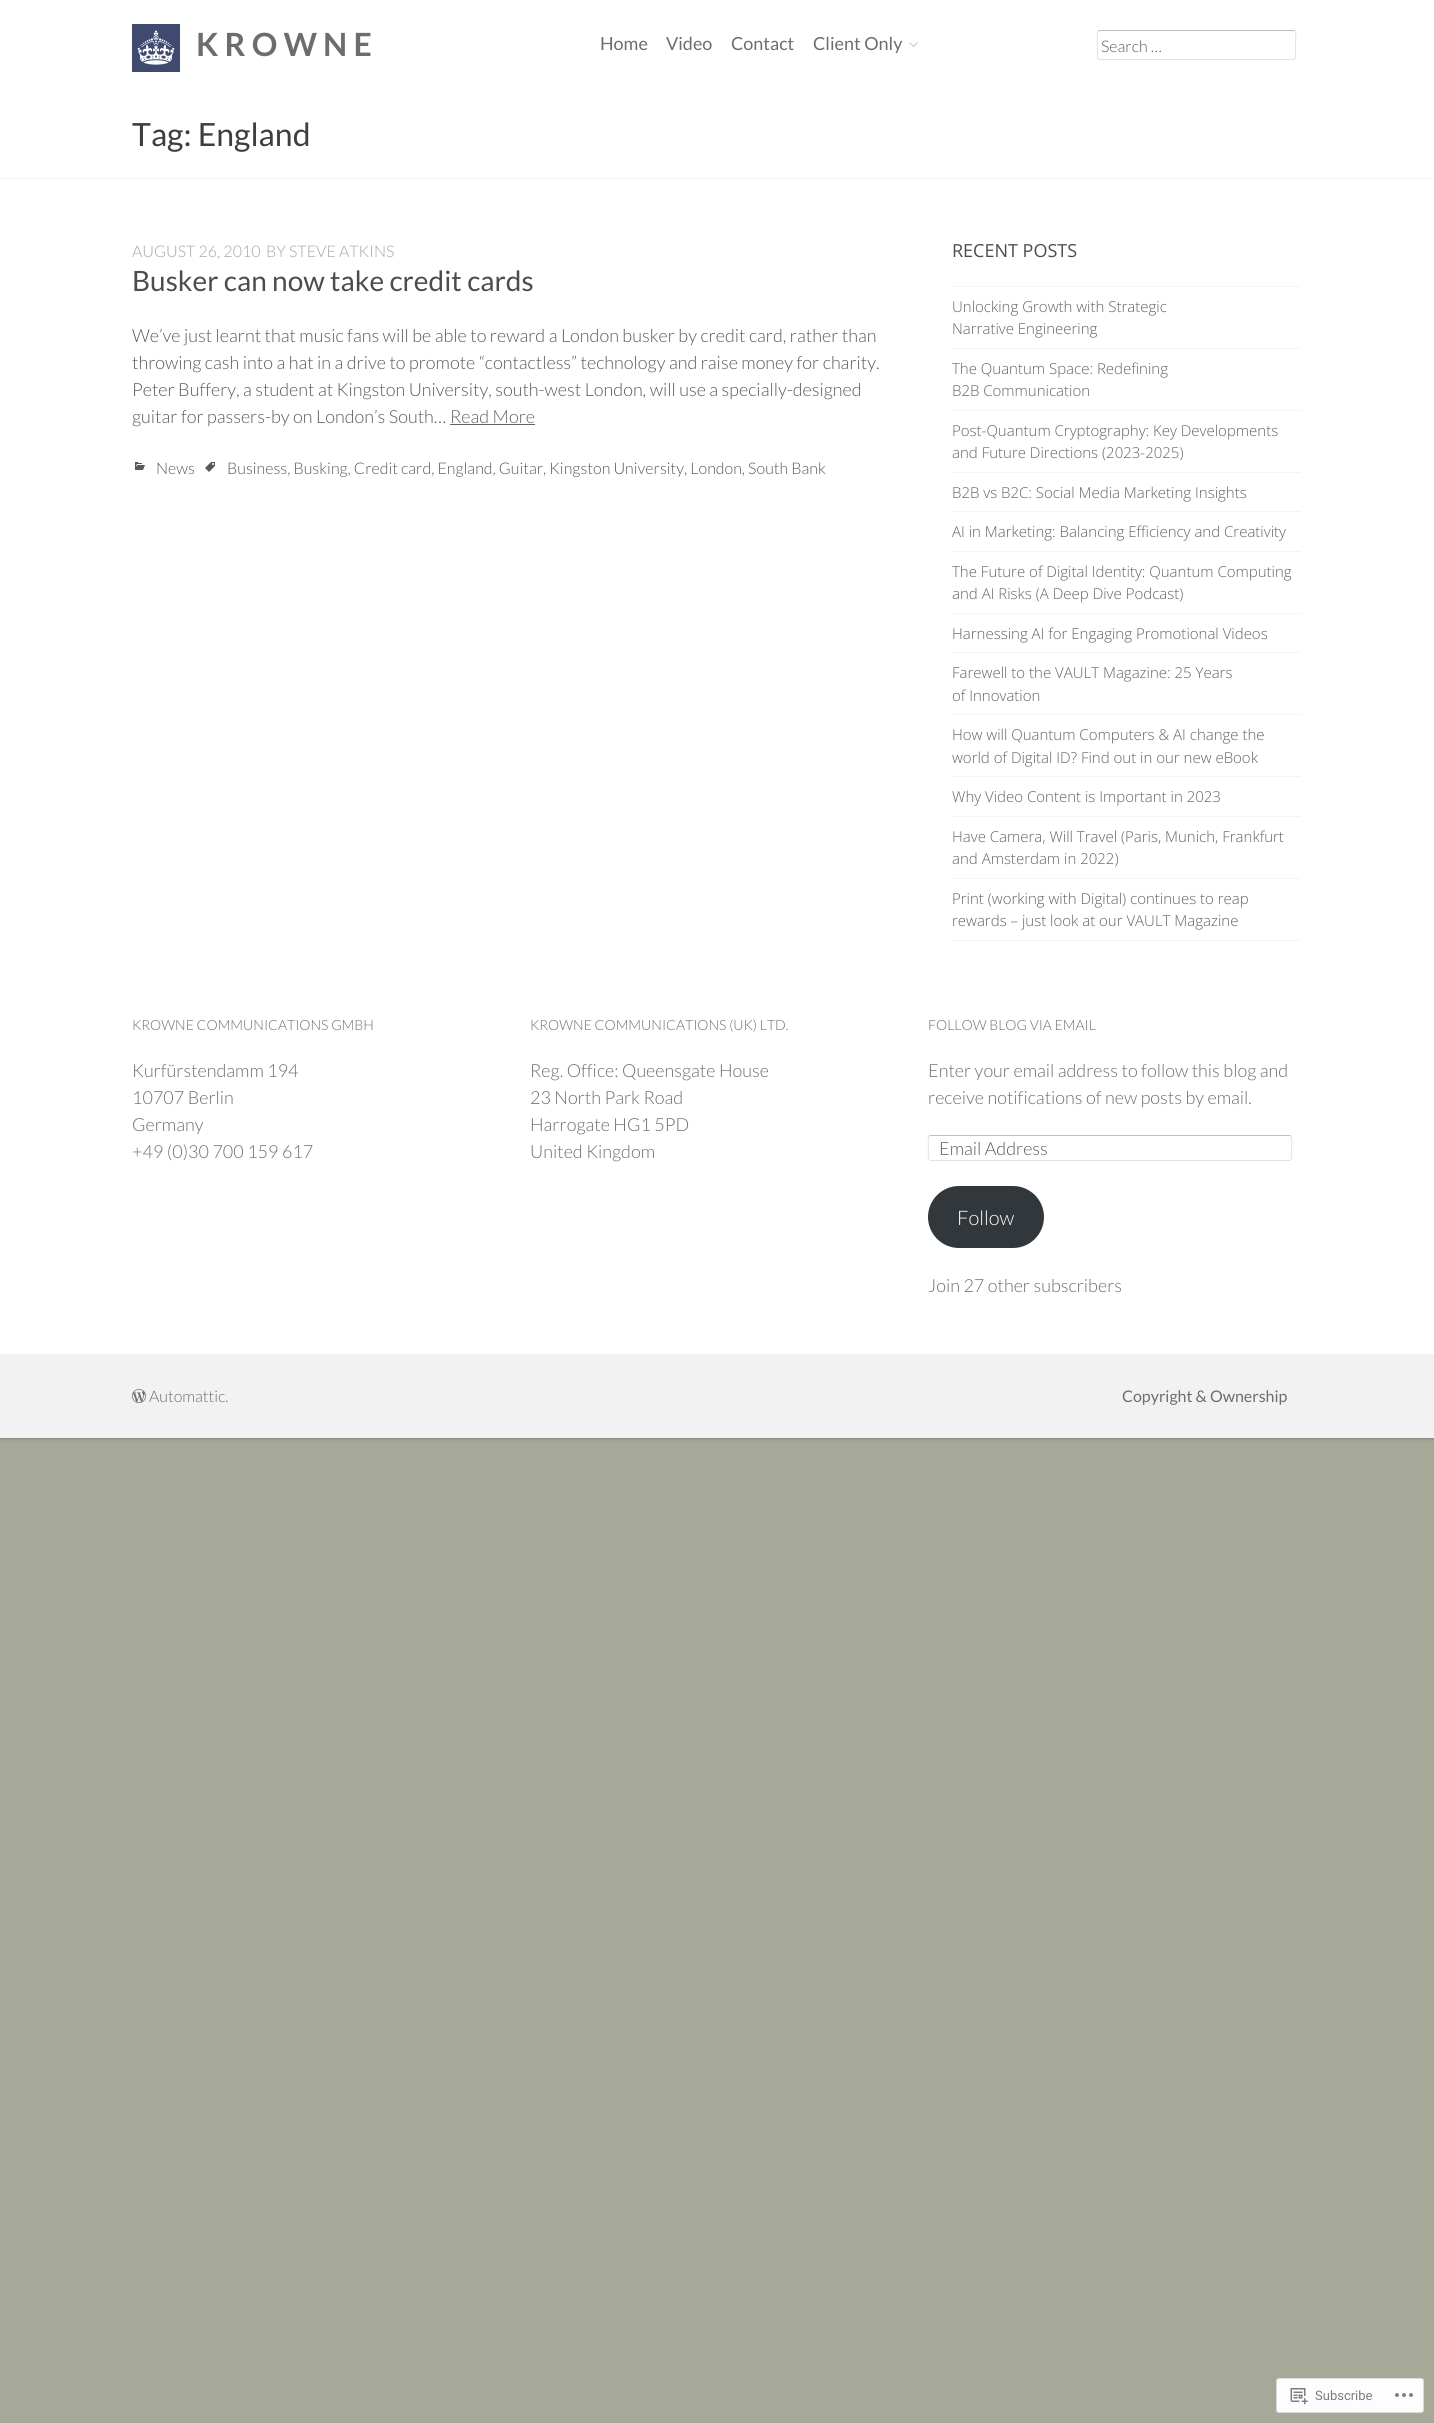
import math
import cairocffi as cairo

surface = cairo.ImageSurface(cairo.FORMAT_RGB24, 1434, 2423)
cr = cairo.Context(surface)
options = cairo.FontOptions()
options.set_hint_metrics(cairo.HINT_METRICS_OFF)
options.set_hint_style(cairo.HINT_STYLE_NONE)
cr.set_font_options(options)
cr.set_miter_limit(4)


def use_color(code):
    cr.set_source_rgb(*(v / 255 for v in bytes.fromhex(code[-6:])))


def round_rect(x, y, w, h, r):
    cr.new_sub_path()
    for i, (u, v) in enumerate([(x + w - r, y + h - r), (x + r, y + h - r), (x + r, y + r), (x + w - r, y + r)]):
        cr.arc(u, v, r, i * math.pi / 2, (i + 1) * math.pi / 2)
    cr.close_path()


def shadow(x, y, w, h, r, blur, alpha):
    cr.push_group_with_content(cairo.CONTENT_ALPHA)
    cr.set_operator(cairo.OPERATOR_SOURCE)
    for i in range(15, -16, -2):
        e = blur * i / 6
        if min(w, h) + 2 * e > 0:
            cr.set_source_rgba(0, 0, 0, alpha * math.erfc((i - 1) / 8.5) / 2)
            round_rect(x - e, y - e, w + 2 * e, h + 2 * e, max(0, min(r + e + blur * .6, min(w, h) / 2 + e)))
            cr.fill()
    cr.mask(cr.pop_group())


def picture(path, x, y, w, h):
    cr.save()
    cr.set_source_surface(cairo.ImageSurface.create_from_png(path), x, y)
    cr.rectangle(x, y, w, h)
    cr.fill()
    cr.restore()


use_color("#a6a898")
cr.paint()
use_color("#000000")
shadow(-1, -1, 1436, 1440, 0, 1.5, 0.2)
use_color("#ffffff")
cr.rectangle(0, 0, 1434, 178)
cr.fill()
picture("img1.png", 132, 24, 48, 48)
cr.select_font_face("Lato", cairo.FONT_SLANT_NORMAL, cairo.FONT_WEIGHT_BOLD)
cr.set_font_size(32)
use_color("#6d6d6d")
cr.move_to(196, 56)
cr.show_text("K R O W N E")
cr.select_font_face("Lato")
cr.set_font_size(18)
cr.move_to(600, 50)
cr.show_text("Home")
cr.move_to(666, 50)
cr.show_text("Video")
cr.move_to(731, 50)
cr.show_text("Contact")
cr.move_to(813, 50)
cr.show_text("Client Only")
picture("img2.png", 909, 42, 9, 6)
cr.new_path()
cr.move_to(1098, 31)
cr.line_to(1100, 30.5)
cr.line_to(1293, 30.5)
cr.line_to(1295, 31)
use_color("#bfbfbf")
cr.set_line_width(1)
cr.stroke()
cr.new_path()
cr.move_to(1295, 31)
cr.curve_to(1296.5, 33, 1295.5, 42.5, 1295.5, 45)
cr.line_to(1295.5, 53)
cr.curve_to(1295.5, 55, 1296.5, 59.5, 1293, 59.5)
cr.line_to(1100, 59.5)
cr.curve_to(1096.5, 59.5, 1097.5, 55, 1097.5, 53)
cr.line_to(1097.5, 45)
cr.curve_to(1097.5, 42.5, 1096.5, 33, 1098, 31)
use_color("#e2e2e2")
cr.stroke()
cr.select_font_face("Lato Light")
cr.set_font_size(16)
use_color("#595959")
cr.move_to(1101, 52)
cr.show_text("Search …")
use_color("#f4f4f6")
cr.rectangle(0, 178, 1434, 1)
cr.fill()
cr.select_font_face("Lato")
cr.set_font_size(32)
use_color("#3e3e3e")
cr.move_to(132, 146)
cr.show_text("Tag: England")
use_color("#ffffff")
cr.rectangle(0, 179, 1434, 1175)
cr.fill()
cr.select_font_face("Lato Light")
cr.set_font_size(16)
use_color("#a5a5a5")
cr.move_to(132, 257)
cr.show_text("AUGUST 26, 2010")
cr.move_to(266, 257)
cr.show_text("BY STEVE ATKINS")
cr.select_font_face("Lato")
cr.set_font_size(28)
use_color("#4d4c4c")
cr.move_to(132, 291)
cr.show_text("Busker can now take credit cards")
cr.select_font_face("Lato Light")
cr.set_font_size(18)
use_color("#595959")
cr.move_to(132, 342)
cr.show_text("We’ve just learnt that music fans will be able to reward a London busker by credit card, rather than")
cr.move_to(132, 369)
cr.show_text("throwing cash into a hat in a drive to promote “contactless” technology and raise money for charity.")
cr.move_to(132, 396)
cr.show_text("Peter Buffery, a student at Kingston University, south-west London, will use a specially-designed")
cr.move_to(132, 423)
cr.show_text("guitar for passers-by on London’s South…")
use_color("#636363")
cr.move_to(450, 423)
cr.show_text("Read More")
cr.rectangle(450, 424, 85, 1)
cr.fill()
picture("img3.png", 135, 462, 10, 8)
cr.set_font_size(16)
use_color("#595959")
cr.move_to(156, 474)
cr.show_text("News")
picture("img4.png", 205, 462, 10, 10)
cr.move_to(227, 474)
cr.show_text("Business, Busking, Credit card, England, Guitar, Kingston University, London, South Bank")
cr.select_font_face("Open Sans")
cr.set_font_size(18)
use_color("#4d4c4c")
cr.move_to(952, 257)
cr.show_text("RECENT POSTS")
cr.new_path()
cr.move_to(952, 286.5)
cr.line_to(1302, 286.5)
use_color("#ebebeb")
cr.set_dash([1, 1])
cr.stroke()
cr.select_font_face("Open Sans Light")
cr.set_font_size(15)
use_color("#636363")
cr.move_to(952, 312)
cr.show_text("Unlocking Growth with Strategic")
cr.move_to(952, 334)
cr.show_text("Narrative Engineering")
cr.new_path()
cr.move_to(952, 348.5)
cr.line_to(1302, 348.5)
use_color("#ebebeb")
cr.stroke()
use_color("#636363")
cr.move_to(952, 374)
cr.show_text("The Quantum Space: Redefining")
cr.move_to(952, 396)
cr.show_text("B2B Communication")
cr.new_path()
cr.move_to(952, 410.5)
cr.line_to(1302, 410.5)
use_color("#ebebeb")
cr.stroke()
use_color("#636363")
cr.move_to(952, 436)
cr.show_text("Post-Quantum Cryptography: Key Developments")
cr.move_to(952, 458)
cr.show_text("and Future Directions (2023-2025)")
cr.new_path()
cr.move_to(952, 472.5)
cr.line_to(1302, 472.5)
use_color("#ebebeb")
cr.stroke()
use_color("#636363")
cr.move_to(952, 498)
cr.show_text("B2B vs B2C: Social Media Marketing Insights")
cr.new_path()
cr.move_to(952, 511.5)
cr.line_to(1302, 511.5)
use_color("#ebebeb")
cr.stroke()
use_color("#636363")
cr.move_to(952, 537)
cr.show_text("AI in Marketing: Balancing Efficiency and Creativity")
cr.new_path()
cr.move_to(952, 551.5)
cr.line_to(1302, 551.5)
use_color("#ebebeb")
cr.stroke()
use_color("#636363")
cr.move_to(952, 577)
cr.show_text("The Future of Digital Identity: Quantum Computing")
cr.move_to(952, 599)
cr.show_text("and AI Risks (A Deep Dive Podcast)")
cr.new_path()
cr.move_to(952, 613.5)
cr.line_to(1302, 613.5)
use_color("#ebebeb")
cr.stroke()
use_color("#636363")
cr.move_to(952, 639)
cr.show_text("Harnessing AI for Engaging Promotional Videos")
cr.new_path()
cr.move_to(952, 652.5)
cr.line_to(1302, 652.5)
use_color("#ebebeb")
cr.stroke()
use_color("#636363")
cr.move_to(952, 678)
cr.show_text("Farewell to the VAULT Magazine: 25 Years")
cr.move_to(952, 701)
cr.show_text("of Innovation")
cr.new_path()
cr.move_to(952, 714.5)
cr.line_to(1302, 714.5)
use_color("#ebebeb")
cr.stroke()
use_color("#636363")
cr.move_to(952, 740)
cr.show_text("How will Quantum Computers & AI change the")
cr.move_to(952, 763)
cr.show_text("world of Digital ID? Find out in our new eBook")
cr.new_path()
cr.move_to(952, 776.5)
cr.line_to(1302, 776.5)
use_color("#ebebeb")
cr.stroke()
use_color("#636363")
cr.move_to(952, 802)
cr.show_text("Why Video Content is Important in 2023")
cr.new_path()
cr.move_to(952, 816.5)
cr.line_to(1302, 816.5)
use_color("#ebebeb")
cr.stroke()
use_color("#636363")
cr.move_to(952, 842)
cr.show_text("Have Camera, Will Travel (Paris, Munich, Frankfurt")
cr.move_to(952, 864)
cr.show_text("and Amsterdam in 2022)")
cr.new_path()
cr.move_to(952, 878.5)
cr.line_to(1302, 878.5)
use_color("#ebebeb")
cr.stroke()
cr.new_path()
cr.move_to(952, 940.5)
cr.line_to(1302, 940.5)
cr.stroke()
use_color("#636363")
cr.move_to(952, 904)
cr.show_text("Print (working with Digital) continues to reap")
cr.move_to(952, 926)
cr.show_text("rewards – just look at our VAULT Magazine")
cr.select_font_face("Lato Light")
cr.set_font_size(14)
use_color("#6d6d6d")
cr.move_to(132, 1030)
cr.show_text("KROWNE COMMUNICATIONS GMBH")
cr.set_font_size(18)
cr.move_to(132, 1077)
cr.show_text("Kurfürstendamm 194")
cr.move_to(132, 1104)
cr.show_text("10707 Berlin")
cr.move_to(132, 1131)
cr.show_text("Germany")
cr.move_to(132, 1158)
cr.show_text("+49 (0)30 700 159 617")
cr.set_font_size(14)
cr.move_to(530, 1030)
cr.show_text("KROWNE COMMUNICATIONS (UK) LTD.")
cr.set_font_size(18)
cr.move_to(530, 1077)
cr.show_text("Reg. Office: Queensgate House")
cr.move_to(530, 1104)
cr.show_text("23 North Park Road")
cr.move_to(530, 1131)
cr.show_text("Harrogate HG1 5PD")
cr.move_to(530, 1158)
cr.show_text("United Kingdom")
cr.set_font_size(14)
cr.move_to(928, 1030)
cr.show_text("FOLLOW BLOG VIA EMAIL")
cr.set_font_size(18)
cr.move_to(928, 1077)
cr.show_text("Enter your email address to follow this blog and")
cr.move_to(928, 1104)
cr.show_text("receive notifications of new posts by email.")
cr.new_path()
cr.move_to(929, 1136)
cr.line_to(931, 1135.5)
cr.line_to(1289, 1135.5)
cr.line_to(1291, 1136)
use_color("#bfbfbf")
cr.set_dash([])
cr.stroke()
cr.new_path()
cr.move_to(1291, 1136)
cr.curve_to(1292.5, 1138, 1291.5, 1148.5, 1291.5, 1151.5)
cr.curve_to(1291.5, 1153, 1293, 1160, 1289, 1160.5)
cr.line_to(931, 1160.5)
cr.curve_to(927, 1160, 928.5, 1153, 928.5, 1151.5)
cr.curve_to(928.5, 1148.5, 927.5, 1138, 929, 1136)
use_color("#e2e2e2")
cr.stroke()
use_color("#595959")
cr.move_to(939, 1155)
cr.show_text("Email Address")
use_color("#32373c")
round_rect(928, 1186, 116, 62, 31)
cr.fill()
cr.set_font_size(20)
use_color("#ffffff")
cr.move_to(957, 1225)
cr.show_text("Follow")
cr.set_font_size(18)
use_color("#6d6d6d")
cr.move_to(928, 1292)
cr.show_text("Join 27 other subscribers")
use_color("#f2f2f2")
cr.rectangle(0, 1354, 1434, 84)
cr.fill()
picture("img5.png", 132, 1389, 14, 14)
cr.set_font_size(16)
use_color("#6d6d6d")
cr.move_to(149, 1402)
cr.show_text("Automattic.")
cr.select_font_face("Lato")
cr.move_to(1122, 1402)
cr.show_text("Copyright & Ownership")
use_color("#fdfdfd")
round_rect(1276.5, 2378.5, 147, 34, 2.5)
cr.fill_preserve()
use_color("#dbdbdd")
cr.stroke()
picture("img6.png", 1290, 2388, 18, 17)
cr.select_font_face("Roboto")
cr.set_font_size(13)
use_color("#797d82")
cr.move_to(1315, 2400)
cr.show_text("Subscribe")
picture("img7.png", 1395, 2393, 18, 4)
surface.write_to_png("result.png")
